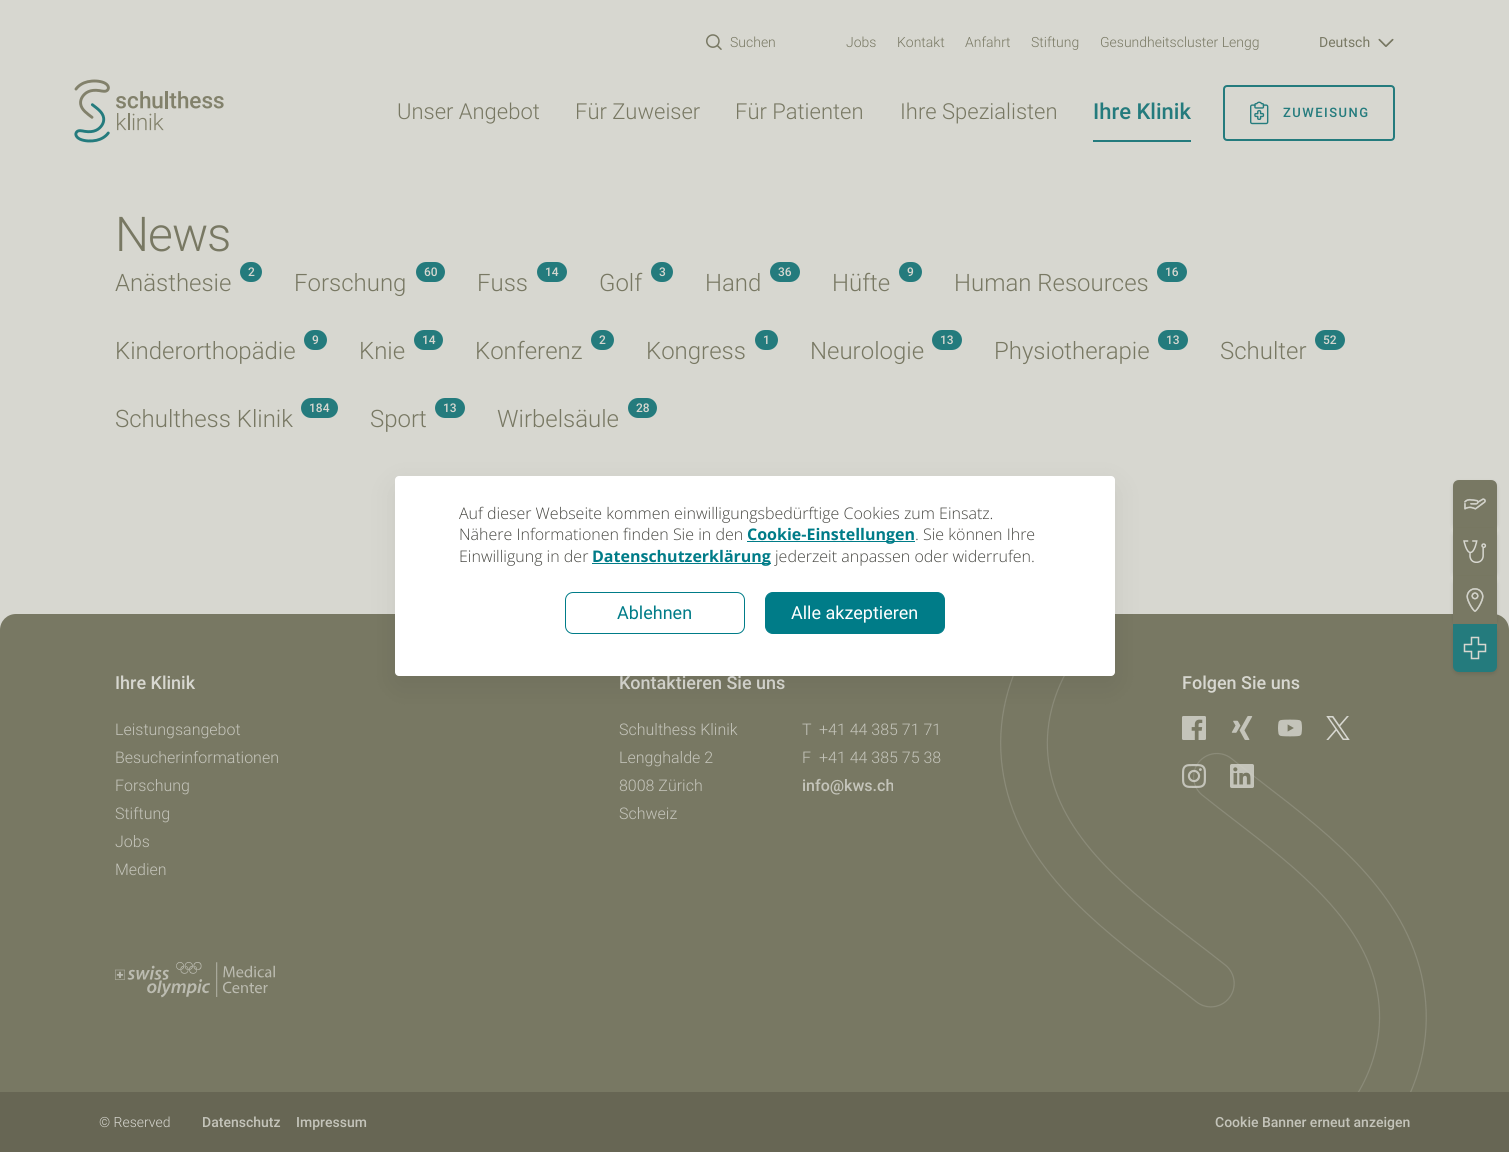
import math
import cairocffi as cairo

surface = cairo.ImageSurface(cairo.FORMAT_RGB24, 1509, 1152)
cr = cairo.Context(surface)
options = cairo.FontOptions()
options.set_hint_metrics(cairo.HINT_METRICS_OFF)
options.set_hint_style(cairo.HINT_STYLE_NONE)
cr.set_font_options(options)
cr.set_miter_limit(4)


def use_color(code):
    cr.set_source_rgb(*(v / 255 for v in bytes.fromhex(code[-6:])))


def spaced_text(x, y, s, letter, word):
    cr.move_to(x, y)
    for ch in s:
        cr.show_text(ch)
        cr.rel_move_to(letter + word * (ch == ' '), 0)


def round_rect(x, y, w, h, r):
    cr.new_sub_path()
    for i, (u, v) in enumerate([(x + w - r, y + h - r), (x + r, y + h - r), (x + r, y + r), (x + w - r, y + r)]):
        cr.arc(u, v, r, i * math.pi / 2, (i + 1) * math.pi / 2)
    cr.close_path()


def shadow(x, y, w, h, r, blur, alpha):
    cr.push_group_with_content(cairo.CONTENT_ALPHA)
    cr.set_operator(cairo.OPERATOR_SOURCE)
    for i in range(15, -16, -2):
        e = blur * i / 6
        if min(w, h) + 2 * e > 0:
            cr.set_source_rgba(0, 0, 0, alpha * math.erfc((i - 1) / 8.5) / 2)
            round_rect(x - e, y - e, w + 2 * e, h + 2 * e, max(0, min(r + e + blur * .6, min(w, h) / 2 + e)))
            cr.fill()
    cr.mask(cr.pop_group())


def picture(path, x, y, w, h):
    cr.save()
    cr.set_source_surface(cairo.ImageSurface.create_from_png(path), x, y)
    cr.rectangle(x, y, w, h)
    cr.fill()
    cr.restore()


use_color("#d7d7d0")
cr.paint()
picture("img1.png", 706, 34, 16, 16)
cr.select_font_face("Roboto Light")
cr.set_font_size(14)
use_color("#787863")
cr.move_to(730, 47)
cr.show_text("Suchen")
cr.move_to(846, 47)
cr.show_text("Jobs")
cr.move_to(897, 47)
cr.show_text("Kontakt")
cr.move_to(965, 47)
cr.show_text("Anfahrt")
cr.move_to(1031, 47)
cr.show_text("Stiftung")
cr.move_to(1100, 47)
cr.show_text("Gesundheitscluster Lengg")
picture("img2.png", 1378, 38, 16, 9)
cr.select_font_face("Roboto")
cr.move_to(1319, 47)
cr.show_text("Deutsch")
picture("img3.png", 74, 79, 150, 64)
cr.select_font_face("Roboto Light")
cr.set_font_size(22)
cr.move_to(397, 119)
cr.show_text("Unser Angebot")
cr.move_to(575, 119)
cr.show_text("Für Zuweiser")
cr.move_to(735, 119)
cr.show_text("Für Patienten")
cr.move_to(900, 119)
cr.show_text("Ihre Spezialisten")
cr.select_font_face("Roboto Medium")
use_color("#247b7d")
cr.move_to(1093, 119)
cr.show_text("Ihre Klinik")
cr.rectangle(1093, 140, 98, 2)
cr.fill()
picture("img4.png", 1250, 101, 19, 24)
round_rect(1224, 86, 170, 54, 3)
cr.stroke()
cr.set_font_size(13)
spaced_text(1283, 117, "ZUWEISUNG", 1.5, 0)
cr.select_font_face("Roboto Light")
cr.set_font_size(48)
use_color("#787863")
spaced_text(115, 251, "News", -1, 0)
use_color("#247b7d")
round_rect(240, 262, 22, 20, 10)
cr.fill()
cr.select_font_face("Roboto Medium")
cr.set_font_size(12)
use_color("#d7d7d0")
cr.move_to(248, 276)
cr.show_text("2")
cr.select_font_face("Roboto Light")
cr.set_font_size(24)
use_color("#787863")
cr.move_to(115, 291)
cr.show_text("Anästhesie")
use_color("#247b7d")
round_rect(416, 262, 29, 20, 10)
cr.fill()
cr.select_font_face("Roboto Medium")
cr.set_font_size(12)
use_color("#d7d7d0")
cr.move_to(424, 276)
cr.show_text("60")
cr.select_font_face("Roboto Light")
cr.set_font_size(24)
use_color("#787863")
cr.move_to(294, 291)
cr.show_text("Forschung")
use_color("#247b7d")
round_rect(537, 262, 30, 20, 10)
cr.fill()
cr.select_font_face("Roboto Medium")
cr.set_font_size(12)
use_color("#d7d7d0")
cr.move_to(545, 276)
cr.show_text("14")
cr.select_font_face("Roboto Light")
cr.set_font_size(24)
use_color("#787863")
cr.move_to(477, 291)
cr.show_text("Fuss")
cr.move_to(599, 291)
cr.show_text("Golf")
use_color("#247b7d")
round_rect(651, 262, 22, 20, 10)
cr.fill()
cr.select_font_face("Roboto Medium")
cr.set_font_size(12)
use_color("#d7d7d0")
cr.move_to(659, 276)
cr.show_text("3")
use_color("#247b7d")
round_rect(770, 262, 30, 20, 10)
cr.fill()
use_color("#d7d7d0")
cr.move_to(778, 276)
cr.show_text("36")
cr.select_font_face("Roboto Light")
cr.set_font_size(24)
use_color("#787863")
cr.move_to(705, 291)
cr.show_text("Hand")
cr.move_to(832, 291)
cr.show_text("Hüfte")
use_color("#247b7d")
round_rect(899, 262, 23, 20, 10)
cr.fill()
cr.select_font_face("Roboto Medium")
cr.set_font_size(12)
use_color("#d7d7d0")
cr.move_to(907, 276)
cr.show_text("9")
use_color("#247b7d")
round_rect(1157, 262, 30, 20, 10)
cr.fill()
use_color("#d7d7d0")
cr.move_to(1165, 276)
cr.show_text("16")
cr.select_font_face("Roboto Light")
cr.set_font_size(24)
use_color("#787863")
cr.move_to(954, 291)
cr.show_text("Human Resources")
use_color("#247b7d")
round_rect(304, 330, 23, 20, 10)
cr.fill()
cr.select_font_face("Roboto Medium")
cr.set_font_size(12)
use_color("#d7d7d0")
cr.move_to(312, 344)
cr.show_text("9")
cr.select_font_face("Roboto Light")
cr.set_font_size(24)
use_color("#787863")
cr.move_to(115, 359)
cr.show_text("Kinderorthopädie")
use_color("#247b7d")
round_rect(414, 330, 29, 20, 10)
cr.fill()
cr.select_font_face("Roboto Medium")
cr.set_font_size(12)
use_color("#d7d7d0")
cr.move_to(422, 344)
cr.show_text("14")
cr.select_font_face("Roboto Light")
cr.set_font_size(24)
use_color("#787863")
cr.move_to(359, 359)
cr.show_text("Knie")
cr.move_to(475, 359)
cr.show_text("Konferenz")
use_color("#247b7d")
round_rect(591, 330, 23, 20, 10)
cr.fill()
cr.select_font_face("Roboto Medium")
cr.set_font_size(12)
use_color("#d7d7d0")
cr.move_to(599, 344)
cr.show_text("2")
use_color("#247b7d")
round_rect(755, 330, 23, 20, 10)
cr.fill()
use_color("#d7d7d0")
cr.move_to(763, 344)
cr.show_text("1")
cr.select_font_face("Roboto Light")
cr.set_font_size(24)
use_color("#787863")
cr.move_to(646, 359)
cr.show_text("Kongress")
use_color("#247b7d")
round_rect(932, 330, 30, 20, 10)
cr.fill()
cr.select_font_face("Roboto Medium")
cr.set_font_size(12)
use_color("#d7d7d0")
cr.move_to(940, 344)
cr.show_text("13")
cr.select_font_face("Roboto Light")
cr.set_font_size(24)
use_color("#787863")
cr.move_to(810, 359)
cr.show_text("Neurologie")
use_color("#247b7d")
round_rect(1158, 330, 30, 20, 10)
cr.fill()
cr.select_font_face("Roboto Medium")
cr.set_font_size(12)
use_color("#d7d7d0")
cr.move_to(1166, 344)
cr.show_text("13")
cr.select_font_face("Roboto Light")
cr.set_font_size(24)
use_color("#787863")
cr.move_to(994, 359)
cr.show_text("Physiotherapie")
use_color("#247b7d")
round_rect(1315, 330, 30, 20, 10)
cr.fill()
cr.select_font_face("Roboto Medium")
cr.set_font_size(12)
use_color("#d7d7d0")
cr.move_to(1323, 344)
cr.show_text("52")
cr.select_font_face("Roboto Light")
cr.set_font_size(24)
use_color("#787863")
cr.move_to(1220, 359)
cr.show_text("Schulter")
use_color("#247b7d")
round_rect(301, 398, 37, 20, 10)
cr.fill()
cr.select_font_face("Roboto Medium")
cr.set_font_size(12)
use_color("#d7d7d0")
cr.move_to(309, 412)
cr.show_text("184")
cr.select_font_face("Roboto Light")
cr.set_font_size(24)
use_color("#787863")
cr.move_to(115, 427)
cr.show_text("Schulthess Klinik")
use_color("#247b7d")
round_rect(435, 398, 30, 20, 10)
cr.fill()
cr.select_font_face("Roboto Medium")
cr.set_font_size(12)
use_color("#d7d7d0")
cr.move_to(443, 412)
cr.show_text("13")
cr.select_font_face("Roboto Light")
cr.set_font_size(24)
use_color("#787863")
cr.move_to(370, 427)
cr.show_text("Sport")
use_color("#247b7d")
round_rect(628, 398, 29, 20, 10)
cr.fill()
cr.select_font_face("Roboto Medium")
cr.set_font_size(12)
use_color("#d7d7d0")
cr.move_to(636, 412)
cr.show_text("28")
cr.select_font_face("Roboto Light")
cr.set_font_size(24)
use_color("#787863")
cr.move_to(497, 427)
cr.show_text("Wirbelsäule")
use_color("#24241e")
shadow(1453, 482, 44, 48, 6, 2, 0.15)
use_color("#787863")
cr.new_path()
cr.move_to(1459, 480)
cr.line_to(1491, 480)
cr.curve_to(1494.5, 480, 1497, 482.5, 1497, 486)
cr.line_to(1497, 528)
cr.line_to(1453, 528)
cr.line_to(1453, 486)
cr.curve_to(1453, 482.5, 1455.5, 480, 1459, 480)
cr.close_path()
cr.fill()
picture("img5.png", 1464, 498, 22, 12)
use_color("#24241e")
shadow(1453, 530, 44, 48, 6, 2, 0.15)
use_color("#787863")
cr.rectangle(1453, 528, 44, 48)
cr.fill()
picture("img6.png", 1463, 540, 24, 23)
cr.new_path()
cr.move_to(16, 614)
cr.line_to(1493, 614)
cr.curve_to(1502, 614, 1509, 621, 1509, 630)
cr.line_to(1509, 1152)
cr.line_to(0, 1152)
cr.line_to(0, 630)
cr.curve_to(0, 621, 7, 614, 16, 614)
cr.close_path()
cr.fill()
use_color("#24241e")
shadow(1453, 578, 44, 48, 6, 2, 0.15)
use_color("#787863")
cr.rectangle(1453, 576, 44, 48)
cr.fill()
picture("img7.png", 1466, 588, 18, 24)
use_color("#24241e")
shadow(1453, 626, 44, 48, 6, 2, 0.15)
use_color("#247b7d")
cr.new_path()
cr.move_to(1453, 624)
cr.line_to(1497, 624)
cr.line_to(1497, 666)
cr.curve_to(1497, 669.5, 1494.5, 672, 1491, 672)
cr.line_to(1459, 672)
cr.curve_to(1455.5, 672, 1453, 669.5, 1453, 666)
cr.close_path()
cr.fill()
picture("img8.png", 1463, 636, 24, 24)
cr.select_font_face("Roboto Medium")
cr.set_font_size(18)
use_color("#d7d7d0")
cr.move_to(115, 689)
cr.show_text("Ihre Klinik")
cr.select_font_face("Roboto Light")
cr.set_font_size(16)
use_color("#c4c4ba")
cr.move_to(115, 735)
cr.show_text("Leistungsangebot")
cr.move_to(115, 763)
cr.show_text("Besucherinformationen")
cr.move_to(115, 791)
cr.show_text("Forschung")
cr.move_to(115, 819)
cr.show_text("Stiftung")
cr.move_to(115, 847)
cr.show_text("Jobs")
cr.move_to(115, 875)
cr.show_text("Medien")
cr.select_font_face("Roboto Medium")
cr.set_font_size(18)
use_color("#d7d7d0")
cr.move_to(619, 689)
cr.show_text("Kontaktieren Sie uns")
cr.select_font_face("Roboto Light")
cr.set_font_size(16)
use_color("#c4c4ba")
cr.move_to(619, 735)
cr.show_text("Schulthess Klinik")
cr.move_to(619, 763)
cr.show_text("Lengghalde 2")
cr.move_to(619, 791)
cr.show_text("8008 Zürich")
cr.move_to(619, 819)
cr.show_text("Schweiz")
cr.move_to(802, 735)
cr.show_text("T")
cr.move_to(819, 735)
cr.show_text("+41 44 385 71 71")
cr.move_to(802, 763)
cr.show_text("F")
cr.move_to(819, 763)
cr.show_text("+41 44 385 75 38")
cr.select_font_face("Roboto Medium")
cr.move_to(802, 791)
cr.show_text("info@kws.ch")
picture("img16.png", 1000, 676, 427, 416)
cr.set_font_size(18)
use_color("#d7d7d0")
cr.move_to(1182, 689)
cr.show_text("Folgen Sie uns")
picture("img9.png", 1182, 716, 24, 24)
picture("img10.png", 1231, 716, 22, 24)
picture("img11.png", 1278, 719, 24, 18)
picture("img12.png", 1326, 716, 24, 24)
picture("img13.png", 1182, 764, 24, 24)
picture("img14.png", 1230, 764, 24, 24)
picture("img15.png", 115, 962, 160, 36)
use_color("#676654")
cr.rectangle(0, 1092, 1509, 60)
cr.fill()
cr.select_font_face("Roboto Light")
cr.set_font_size(14)
use_color("#d7d7d0")
cr.move_to(99, 1127)
cr.show_text("© Reserved")
cr.select_font_face("Roboto Medium")
use_color("#c4c4ba")
cr.move_to(202, 1127)
cr.show_text("Datenschutz")
cr.move_to(296, 1127)
cr.show_text("Impressum")
cr.move_to(1215, 1127)
cr.show_text("Cookie Banner erneut anzeigen")
use_color("#000000")
shadow(395, 486, 720, 200, 4, 16, 0.07)
use_color("#ffffff")
round_rect(395, 476, 720, 200, 4)
cr.fill()
cr.select_font_face("Open Sans Light")
cr.set_font_size(16)
use_color("#474742")
cr.move_to(459, 519)
cr.show_text("Auf dieser Webseite kommen einwilligungsbedürftige Cookies zum Einsatz.")
cr.move_to(459, 540)
cr.show_text("Nähere Informationen finden Sie in den")
use_color("#007c88")
cr.rectangle(747, 541, 168, 1)
cr.fill()
cr.select_font_face("Open Sans", cairo.FONT_SLANT_NORMAL, cairo.FONT_WEIGHT_BOLD)
cr.move_to(747, 540)
cr.show_text("Cookie-Einstellungen")
cr.select_font_face("Open Sans Light")
use_color("#474742")
cr.move_to(915, 540)
cr.show_text(". Sie können Ihre")
cr.move_to(459, 562)
cr.show_text("Einwilligung in der")
use_color("#007c88")
cr.rectangle(592, 563, 179, 1)
cr.fill()
cr.select_font_face("Open Sans", cairo.FONT_SLANT_NORMAL, cairo.FONT_WEIGHT_BOLD)
cr.move_to(592, 562)
cr.show_text("Datenschutzerklärung")
cr.select_font_face("Open Sans Light")
use_color("#474742")
cr.move_to(775, 562)
cr.show_text("jederzeit anpassen oder widerrufen.")
round_rect(565.5, 592.5, 179, 41, 7.5)
use_color("#007c88")
cr.set_line_width(1)
cr.stroke()
cr.select_font_face("Roboto")
cr.set_font_size(18)
cr.move_to(617, 619)
cr.show_text("Ablehnen")
round_rect(765.5, 592.5, 179, 41, 7.5)
cr.fill_preserve()
cr.stroke()
use_color("#ffffff")
cr.move_to(791, 619)
cr.show_text("Alle akzeptieren")
surface.write_to_png("result.png")
